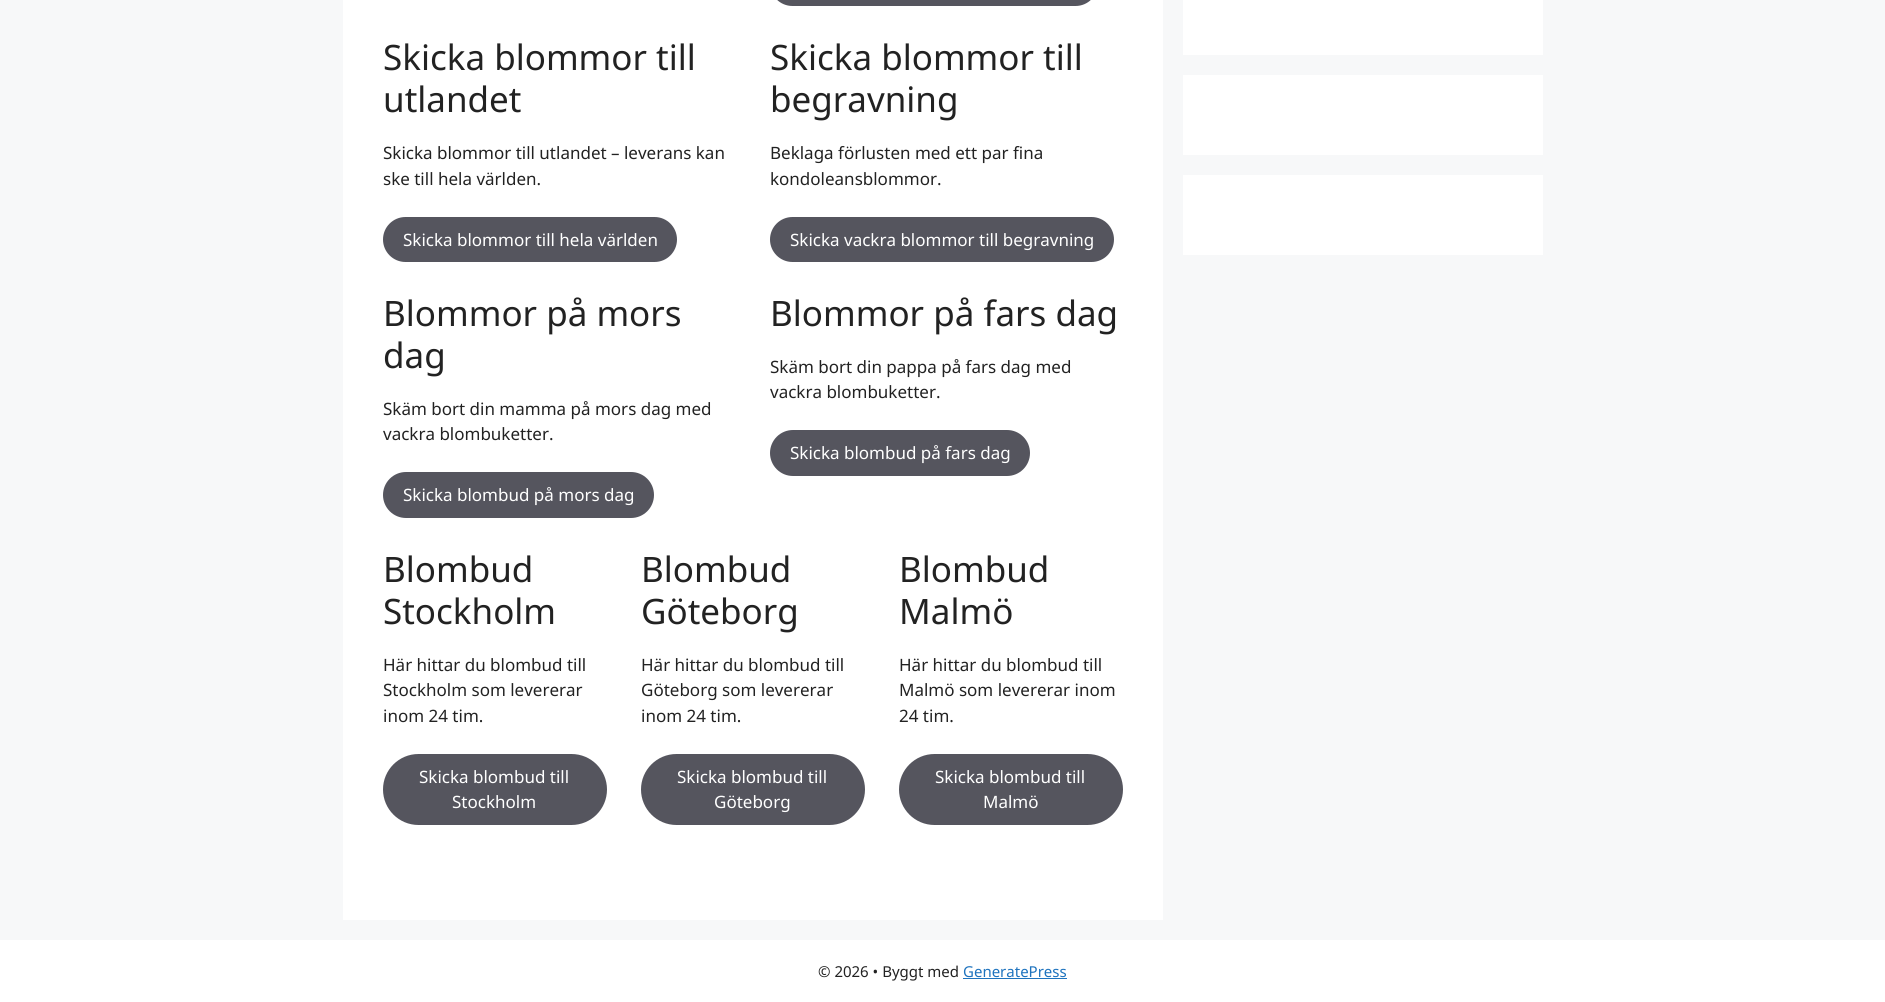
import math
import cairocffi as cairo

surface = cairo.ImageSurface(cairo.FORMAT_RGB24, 1885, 1002)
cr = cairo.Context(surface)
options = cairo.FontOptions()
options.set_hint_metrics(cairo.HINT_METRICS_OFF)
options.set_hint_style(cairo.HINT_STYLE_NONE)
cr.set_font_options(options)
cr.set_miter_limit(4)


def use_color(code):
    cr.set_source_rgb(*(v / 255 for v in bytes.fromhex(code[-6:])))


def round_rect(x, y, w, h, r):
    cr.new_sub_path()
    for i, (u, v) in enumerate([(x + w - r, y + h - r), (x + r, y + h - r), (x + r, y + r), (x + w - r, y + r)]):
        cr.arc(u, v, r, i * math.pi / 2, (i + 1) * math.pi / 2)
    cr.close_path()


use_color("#f7f8f9")
cr.paint()
use_color("#ffffff")
cr.rectangle(343, 0, 820, 920)
cr.fill()
use_color("#55555e")
round_rect(770, -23, 328, 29, 22.5)
cr.fill()
cr.select_font_face("Noto Sans")
cr.set_font_size(35)
use_color("#222222")
cr.move_to(383, 70)
cr.show_text("Skicka blommor till")
cr.move_to(383, 112)
cr.show_text("utlandet")
cr.set_font_size(17)
cr.move_to(383, 159)
cr.show_text("Skicka blommor till utlandet – leverans kan")
cr.move_to(383, 185)
cr.show_text("ske till hela världen.")
use_color("#55555e")
round_rect(383, 217, 294, 45, 22.5)
cr.fill()
use_color("#ffffff")
cr.move_to(403, 246)
cr.show_text("Skicka blommor till hela världen")
cr.set_font_size(35)
use_color("#222222")
cr.move_to(770, 70)
cr.show_text("Skicka blommor till")
cr.move_to(770, 112)
cr.show_text("begravning")
cr.set_font_size(17)
cr.move_to(770, 159)
cr.show_text("Beklaga förlusten med ett par fina")
cr.move_to(770, 185)
cr.show_text("kondoleansblommor.")
use_color("#55555e")
round_rect(770, 217, 344, 45, 22.5)
cr.fill()
use_color("#ffffff")
cr.move_to(790, 246)
cr.show_text("Skicka vackra blommor till begravning")
cr.set_font_size(35)
use_color("#222222")
cr.move_to(383, 326)
cr.show_text("Blommor på mors")
cr.move_to(383, 368)
cr.show_text("dag")
cr.set_font_size(17)
cr.move_to(383, 415)
cr.show_text("Skäm bort din mamma på mors dag med")
cr.move_to(383, 440)
cr.show_text("vackra blombuketter.")
use_color("#55555e")
round_rect(383, 472, 271, 46, 23)
cr.fill()
use_color("#ffffff")
cr.move_to(403, 501)
cr.show_text("Skicka blombud på mors dag")
cr.set_font_size(35)
use_color("#222222")
cr.move_to(770, 326)
cr.show_text("Blommor på fars dag")
cr.set_font_size(17)
cr.move_to(770, 373)
cr.show_text("Skäm bort din pappa på fars dag med")
cr.move_to(770, 398)
cr.show_text("vackra blombuketter.")
use_color("#55555e")
round_rect(770, 430, 260, 46, 23)
cr.fill()
use_color("#ffffff")
cr.move_to(790, 459)
cr.show_text("Skicka blombud på fars dag")
cr.set_font_size(35)
use_color("#222222")
cr.move_to(383, 582)
cr.show_text("Blombud")
cr.move_to(383, 624)
cr.show_text("Stockholm")
cr.set_font_size(17)
cr.move_to(383, 671)
cr.show_text("Här hittar du blombud till")
cr.move_to(383, 696)
cr.show_text("Stockholm som levererar")
cr.move_to(383, 722)
cr.show_text("inom 24 tim.")
use_color("#55555e")
round_rect(383, 754, 224, 71, 35.5)
cr.fill()
use_color("#ffffff")
cr.move_to(419, 783)
cr.show_text("Skicka blombud till")
cr.move_to(452, 808)
cr.show_text("Stockholm")
cr.set_font_size(35)
use_color("#222222")
cr.move_to(641, 582)
cr.show_text("Blombud")
cr.move_to(641, 624)
cr.show_text("Göteborg")
cr.set_font_size(17)
cr.move_to(641, 671)
cr.show_text("Här hittar du blombud till")
cr.move_to(641, 696)
cr.show_text("Göteborg som levererar")
cr.move_to(641, 722)
cr.show_text("inom 24 tim.")
use_color("#55555e")
round_rect(641, 754, 224, 71, 35.5)
cr.fill()
use_color("#ffffff")
cr.move_to(677, 783)
cr.show_text("Skicka blombud till")
cr.move_to(714, 808)
cr.show_text("Göteborg")
cr.set_font_size(35)
use_color("#222222")
cr.move_to(899, 582)
cr.show_text("Blombud")
cr.move_to(899, 624)
cr.show_text("Malmö")
cr.set_font_size(17)
cr.move_to(899, 671)
cr.show_text("Här hittar du blombud till")
cr.move_to(899, 696)
cr.show_text("Malmö som levererar inom")
cr.move_to(899, 722)
cr.show_text("24 tim.")
use_color("#55555e")
round_rect(899, 754, 224, 71, 35.5)
cr.fill()
use_color("#ffffff")
cr.move_to(935, 783)
cr.show_text("Skicka blombud till")
cr.move_to(983, 808)
cr.show_text("Malmö")
cr.rectangle(1183, 0, 360, 55)
cr.fill()
cr.rectangle(1183, 75, 360, 80)
cr.fill()
cr.rectangle(1183, 175, 360, 80)
cr.fill()
cr.rectangle(0, 940, 1885, 62)
cr.fill()
cr.set_font_size(15)
use_color("#222222")
cr.move_to(818, 977)
cr.show_text("© 2026 • Byggt med")
use_color("#1e73be")
cr.move_to(963, 977)
cr.show_text("GeneratePress")
cr.rectangle(963, 978, 104, 1)
cr.fill()
surface.write_to_png("result.png")
